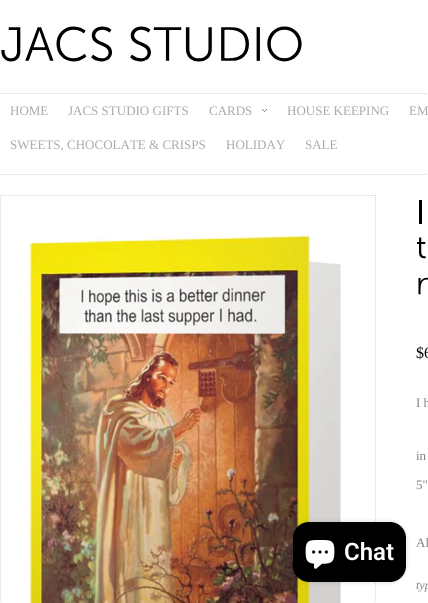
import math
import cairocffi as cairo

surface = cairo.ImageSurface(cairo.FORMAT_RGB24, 428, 603)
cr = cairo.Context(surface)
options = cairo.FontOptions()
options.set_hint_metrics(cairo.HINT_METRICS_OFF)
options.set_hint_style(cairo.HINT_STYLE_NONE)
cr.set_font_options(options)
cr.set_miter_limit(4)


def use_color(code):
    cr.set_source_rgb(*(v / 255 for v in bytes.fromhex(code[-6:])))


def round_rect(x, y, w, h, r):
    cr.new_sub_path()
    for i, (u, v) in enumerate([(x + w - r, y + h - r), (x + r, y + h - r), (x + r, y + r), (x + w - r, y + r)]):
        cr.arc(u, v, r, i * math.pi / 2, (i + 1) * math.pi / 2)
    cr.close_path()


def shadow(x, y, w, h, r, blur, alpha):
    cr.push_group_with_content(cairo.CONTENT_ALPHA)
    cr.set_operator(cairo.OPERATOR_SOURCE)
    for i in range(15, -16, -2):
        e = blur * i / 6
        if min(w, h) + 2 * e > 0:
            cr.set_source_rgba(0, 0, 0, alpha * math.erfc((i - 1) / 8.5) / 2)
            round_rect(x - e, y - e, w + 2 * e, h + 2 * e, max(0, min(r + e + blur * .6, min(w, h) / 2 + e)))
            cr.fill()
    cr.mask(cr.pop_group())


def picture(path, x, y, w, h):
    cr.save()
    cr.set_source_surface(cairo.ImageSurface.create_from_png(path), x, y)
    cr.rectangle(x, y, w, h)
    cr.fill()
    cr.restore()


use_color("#ffffff")
cr.paint()
picture("img1.png", 1, 26, 112, 36)
picture("img2.png", 130, 26, 172, 36)
cr.new_path()
cr.move_to(0, 93.5)
cr.line_to(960, 93.5)
use_color("#d8d8d8")
cr.set_line_width(1)
cr.set_dash([1, 1])
cr.stroke()
cr.new_path()
cr.move_to(0, 174.5)
cr.line_to(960, 174.5)
cr.stroke()
cr.select_font_face("Liberation Serif")
cr.set_font_size(13)
use_color("#aaaaaa")
cr.move_to(10, 115)
cr.show_text("HOME")
cr.move_to(68, 115)
cr.show_text("JACS STUDIO GIFTS")
picture("img3.png", 262, 109, 5, 3)
cr.move_to(209, 115)
cr.show_text("CARDS")
cr.move_to(287, 115)
cr.show_text("HOUSE KEEPING")
cr.move_to(409, 115)
cr.show_text("EM")
cr.move_to(10, 149)
cr.show_text("SWEETS, CHOCOLATE & CRISPS")
cr.move_to(226, 149)
cr.show_text("HOLIDAY")
cr.move_to(305, 149)
cr.show_text("SALE")
cr.new_path()
cr.move_to(0, 195.5)
cr.line_to(376, 195.5)
use_color("#d8d8d8")
cr.stroke()
cr.new_path()
cr.move_to(375.5, 195)
cr.line_to(375.5, 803)
cr.stroke()
cr.new_path()
cr.move_to(0.5, 195)
cr.line_to(0.5, 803)
cr.stroke()
picture("img4.png", 29, 231, 312, 372)
use_color("#000000")
cr.rectangle(419, 200, 3, 24)
cr.fill()
picture("img5.png", 416, 237, 10, 22)
picture("img6.png", 418, 277, 10, 18)
cr.set_font_size(16)
cr.move_to(416, 358)
cr.show_text("$6")
cr.set_font_size(13)
use_color("#808080")
cr.move_to(416, 407)
cr.show_text("I h")
cr.move_to(416, 460)
cr.show_text("in")
cr.move_to(416, 489)
cr.show_text("5\"")
cr.move_to(416, 547)
cr.show_text("Al")
cr.select_font_face("Liberation Serif", cairo.FONT_SLANT_ITALIC)
cr.set_font_size(12)
cr.move_to(416, 589)
cr.show_text("typ")
use_color("#000000")
shadow(293, 522, 113, 60, 16, 2.5, 0.15)
use_color("#000000")
round_rect(293, 522, 113, 60, 16)
cr.fill()
picture("img7.png", 305, 540, 30, 29)
cr.select_font_face("Roboto SemiBold")
cr.set_font_size(24)
use_color("#ffffff")
cr.move_to(344, 560)
cr.show_text("Chat")
surface.write_to_png("result.png")
